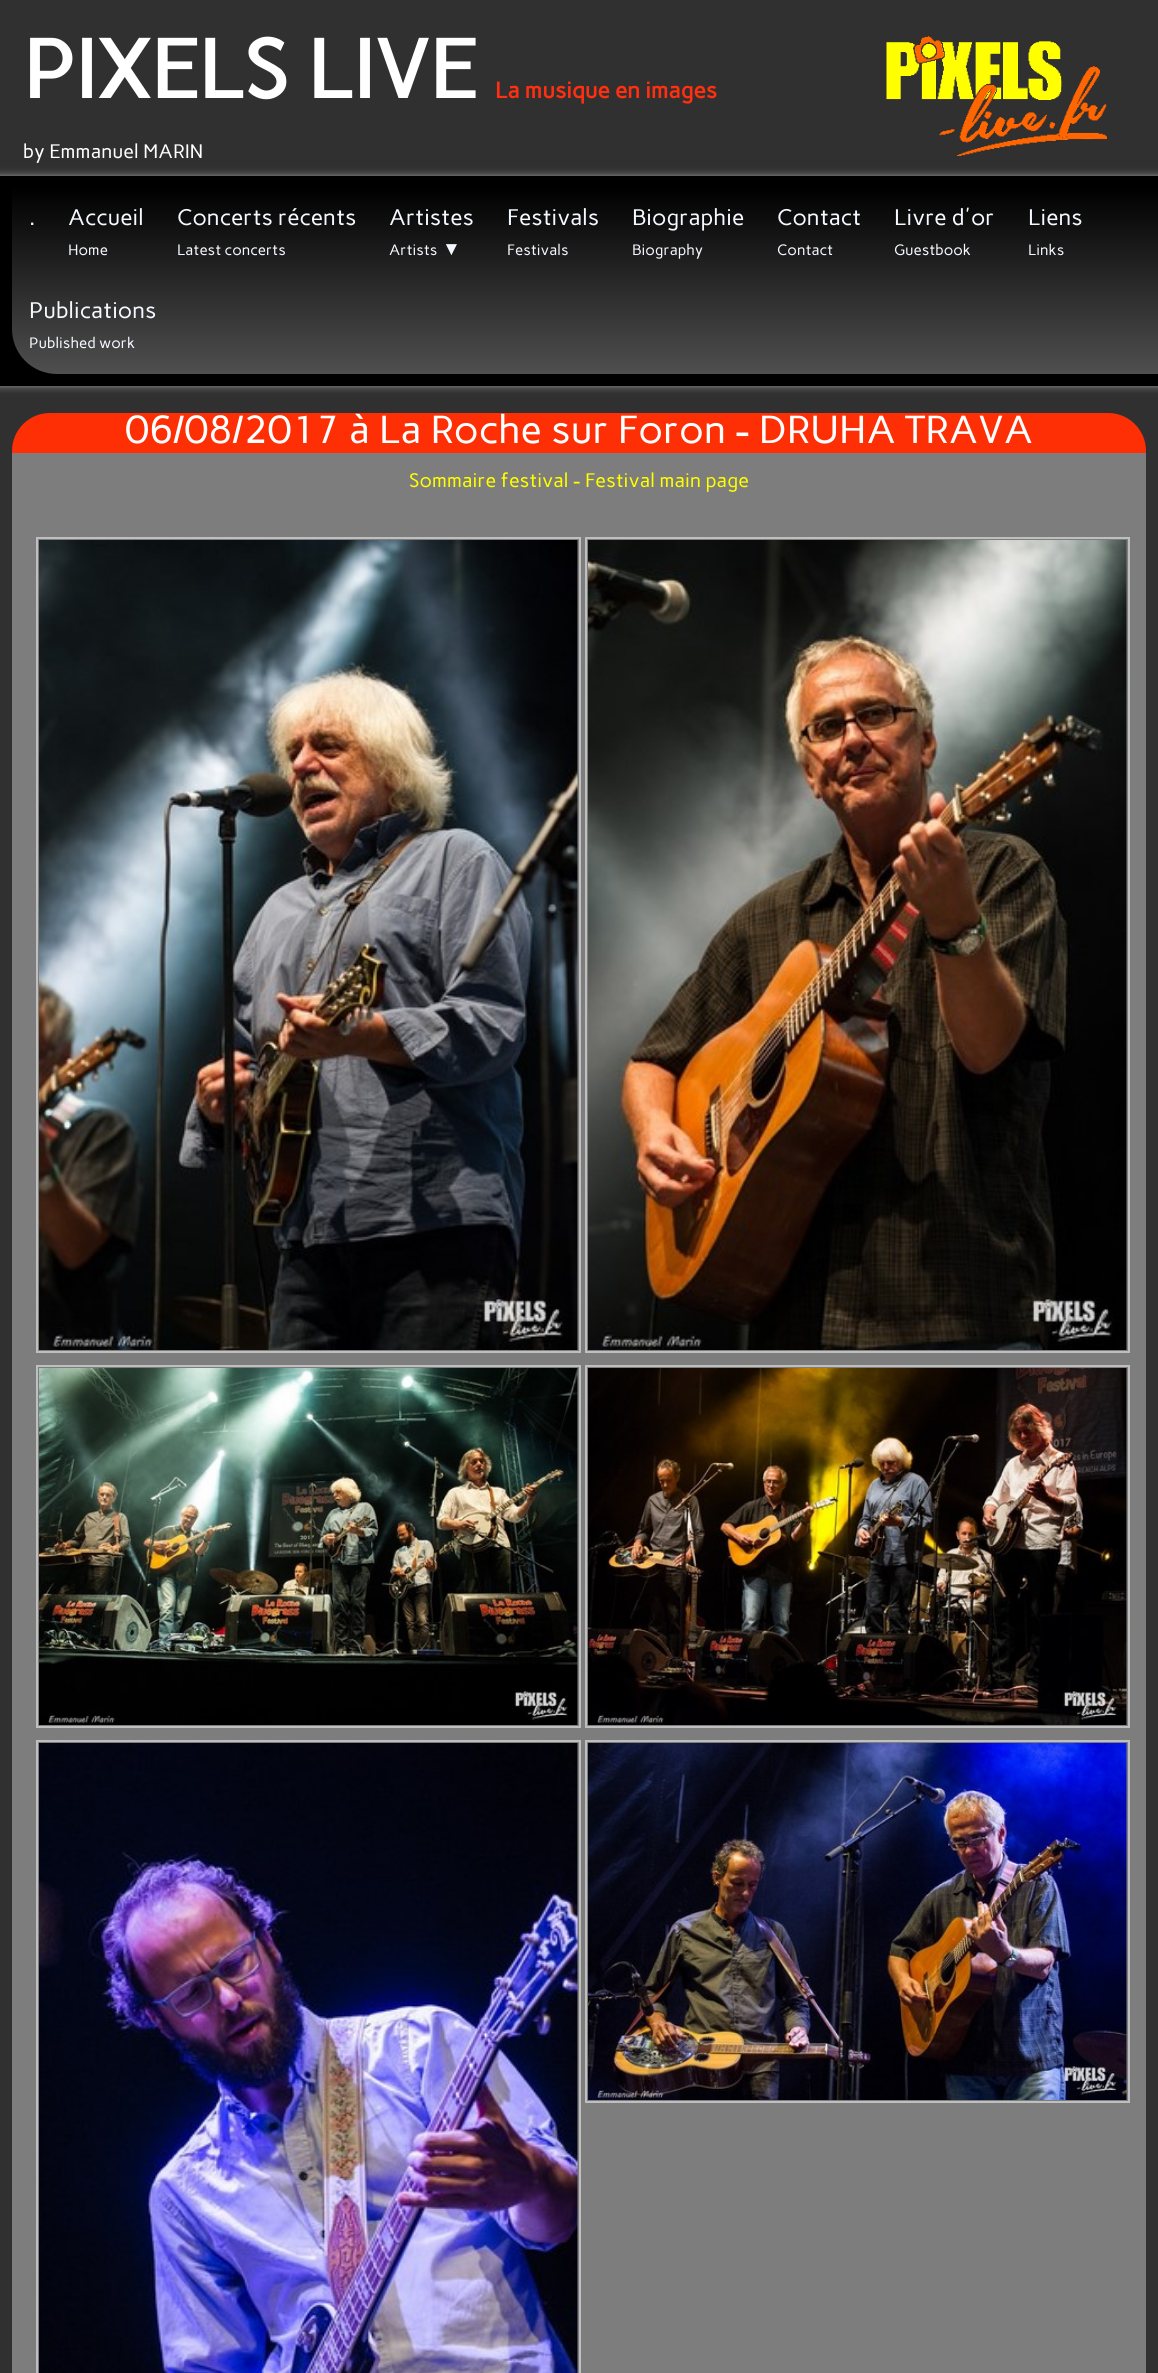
import math
import cairocffi as cairo

surface = cairo.ImageSurface(cairo.FORMAT_RGB24, 1158, 2373)
cr = cairo.Context(surface)
options = cairo.FontOptions()
options.set_hint_metrics(cairo.HINT_METRICS_OFF)
options.set_hint_style(cairo.HINT_STYLE_NONE)
cr.set_font_options(options)
cr.set_miter_limit(4)


def use_color(code):
    cr.set_source_rgb(*(v / 255 for v in bytes.fromhex(code[-6:])))


def round_rect(x, y, w, h, r):
    cr.new_sub_path()
    for i, (u, v) in enumerate([(x + w - r, y + h - r), (x + r, y + h - r), (x + r, y + r), (x + w - r, y + r)]):
        cr.arc(u, v, r, i * math.pi / 2, (i + 1) * math.pi / 2)
    cr.close_path()


def shadow(x, y, w, h, r, blur, alpha):
    cr.push_group_with_content(cairo.CONTENT_ALPHA)
    cr.set_operator(cairo.OPERATOR_SOURCE)
    for i in range(15, -16, -2):
        e = blur * i / 6
        if min(w, h) + 2 * e > 0:
            cr.set_source_rgba(0, 0, 0, alpha * math.erfc((i - 1) / 8.5) / 2)
            round_rect(x - e, y - e, w + 2 * e, h + 2 * e, max(0, min(r + e + blur * .6, min(w, h) / 2 + e)))
            cr.fill()
    cr.mask(cr.pop_group())


def picture(path, x, y, w, h):
    cr.save()
    cr.set_source_surface(cairo.ImageSurface.create_from_png(path), x, y)
    cr.rectangle(x, y, w, h)
    cr.fill()
    cr.restore()


use_color("#313031")
cr.paint()
picture("img1.png", 886, 36, 221, 120)
cr.select_font_face("Carme", cairo.FONT_SLANT_NORMAL, cairo.FONT_WEIGHT_BOLD)
cr.set_font_size(82.5)
use_color("#ffffff")
cr.move_to(23, 98)
cr.show_text("PIXELS LIVE")
cr.set_font_size(22.5)
use_color("#ff2f0f")
cr.move_to(495, 98)
cr.show_text("La musique en images")
cr.select_font_face("Carme")
cr.set_font_size(19.5)
use_color("#ffffff")
cr.move_to(23, 158)
cr.show_text("by Emmanuel MARIN")
use_color("#ffffff")
shadow(-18, 176, 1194, 210, 6, 4, 0.5)
use_color("#000000")
cr.rectangle(0, 176, 1158, 210)
cr.fill()
gradient = cairo.LinearGradient(585, 187, 585, 374)
gradient.add_color_stop_rgba(0, 0, 0, 0, 1)
gradient.add_color_stop_rgba(1, 0.31, 0.31, 0.31, 1)
cr.set_source(gradient)
cr.new_path()
cr.move_to(12, 188)
cr.line_to(1158, 188)
cr.line_to(1158, 374)
cr.line_to(57, 374)
cr.curve_to(32, 374, 12, 354, 12, 329)
cr.close_path()
cr.fill()
cr.set_font_size(22.5)
use_color("#f5f8ff")
cr.move_to(29, 225)
cr.show_text(".")
cr.move_to(68, 225)
cr.show_text("Accueil")
cr.set_font_size(15)
cr.move_to(68, 255)
cr.show_text("Home")
cr.set_font_size(22.5)
cr.move_to(177, 225)
cr.show_text("Concerts récents")
cr.set_font_size(15)
cr.move_to(177, 255)
cr.show_text("Latest concerts")
cr.set_font_size(22.5)
cr.move_to(389, 225)
cr.show_text("Artistes")
cr.set_font_size(15)
cr.move_to(389, 255)
cr.show_text("Artists")
cr.select_font_face("Liberation Sans")
cr.set_font_size(19)
cr.move_to(442, 255)
cr.show_text("▼")
cr.select_font_face("Carme")
cr.set_font_size(22.5)
cr.move_to(507, 225)
cr.show_text("Festivals")
cr.set_font_size(15)
cr.move_to(507, 255)
cr.show_text("Festivals")
cr.set_font_size(22.5)
cr.move_to(632, 225)
cr.show_text("Biographie")
cr.set_font_size(15)
cr.move_to(632, 255)
cr.show_text("Biography")
cr.set_font_size(22.5)
cr.move_to(777, 225)
cr.show_text("Contact")
cr.set_font_size(15)
cr.move_to(777, 255)
cr.show_text("Contact")
cr.set_font_size(22.5)
cr.move_to(894, 225)
cr.show_text("Livre d'or")
cr.set_font_size(15)
cr.move_to(894, 255)
cr.show_text("Guestbook")
cr.set_font_size(22.5)
cr.move_to(1028, 225)
cr.show_text("Liens")
cr.set_font_size(15)
cr.move_to(1028, 255)
cr.show_text("Links")
cr.set_font_size(22.5)
cr.move_to(29, 318)
cr.show_text("Publications")
cr.set_font_size(15)
cr.move_to(29, 348)
cr.show_text("Published work")
use_color("#ff2f05")
cr.new_path()
cr.move_to(50, 413)
cr.line_to(1108, 413)
cr.curve_to(1129, 413, 1146, 430, 1146, 451)
cr.line_to(1146, 453)
cr.line_to(12, 453)
cr.line_to(12, 451)
cr.curve_to(12, 430, 29, 413, 50, 413)
cr.close_path()
cr.fill()
cr.set_font_size(39)
use_color("#ffffff")
cr.move_to(125, 443)
cr.show_text("06/08/2017 à La Roche sur Foron - DRUHA TRAVA")
use_color("#7d7d7d")
cr.rectangle(12, 453, 1134, 1920)
cr.fill()
cr.set_font_size(19.5)
use_color("#ffff00")
cr.move_to(409, 487)
cr.show_text("Sommaire festival - Festival main page")
cr.rectangle(37, 538, 543, 814)
use_color("#bfbfbf")
cr.stroke()
picture("img2.png", 39, 540, 539, 810)
cr.rectangle(37, 1366, 543, 361)
cr.stroke()
picture("img3.png", 39, 1368, 539, 357)
cr.rectangle(37, 1741, 543, 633)
cr.stroke()
picture("img4.png", 39, 1743, 539, 630)
cr.rectangle(586, 538, 543, 814)
cr.stroke()
picture("img5.png", 588, 540, 539, 810)
cr.rectangle(586, 1366, 543, 361)
cr.stroke()
picture("img6.png", 588, 1368, 539, 357)
cr.rectangle(586, 1741, 543, 361)
cr.stroke()
picture("img7.png", 588, 1743, 539, 357)
surface.write_to_png("result.png")
